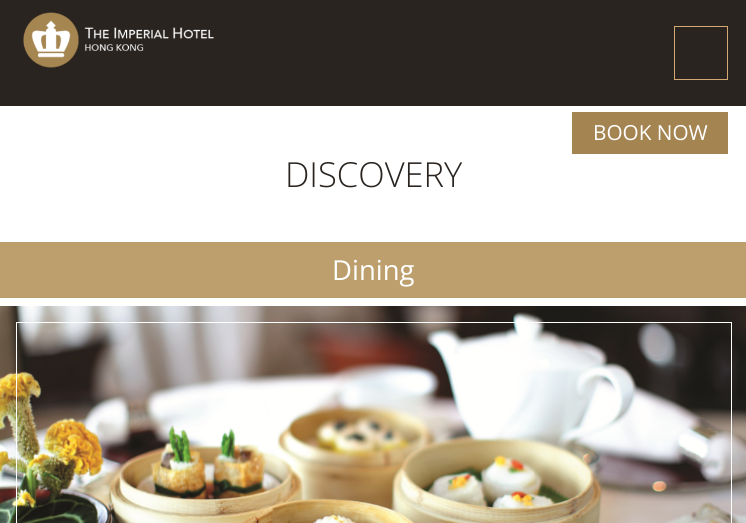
import math
import cairocffi as cairo

surface = cairo.ImageSurface(cairo.FORMAT_RGB24, 746, 523)
cr = cairo.Context(surface)
options = cairo.FontOptions()
options.set_hint_metrics(cairo.HINT_METRICS_OFF)
options.set_hint_style(cairo.HINT_STYLE_NONE)
cr.set_font_options(options)
cr.set_miter_limit(4)


def use_color(code):
    cr.set_source_rgb(*(v / 255 for v in bytes.fromhex(code[-6:])))


def picture(path, x, y, w, h):
    cr.save()
    cr.set_source_surface(cairo.ImageSurface.create_from_png(path), x, y)
    cr.rectangle(x, y, w, h)
    cr.fill()
    cr.restore()


use_color("#ffffff")
cr.paint()
use_color("#292420")
cr.rectangle(0, 0, 746, 106)
cr.fill()
picture("img1.png", 23, 12, 191, 56)
cr.rectangle(674.5, 26.5, 53, 53)
use_color("#d2a973")
cr.set_line_width(1)
cr.stroke()
use_color("#a48451")
cr.rectangle(572, 112, 156, 42)
cr.fill()
cr.select_font_face("Open Sans")
cr.set_font_size(20.75)
use_color("#ffffff")
cr.move_to(593, 140)
cr.show_text("BOOK NOW")
cr.select_font_face("Open Sans Light")
cr.set_font_size(34.5)
use_color("#292420")
cr.move_to(285, 187)
cr.show_text("DISCOVERY")
use_color("#bd9f6e")
cr.rectangle(0, 242, 746, 56)
cr.fill()
cr.select_font_face("Open Sans")
cr.set_font_size(27.5)
use_color("#ffffff")
cr.move_to(332, 280)
cr.show_text("Dining")
picture("img2.png", 0, 306, 746, 217)
cr.rectangle(16.5, 322.5, 715, 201)
cr.stroke()
surface.write_to_png("result.png")
